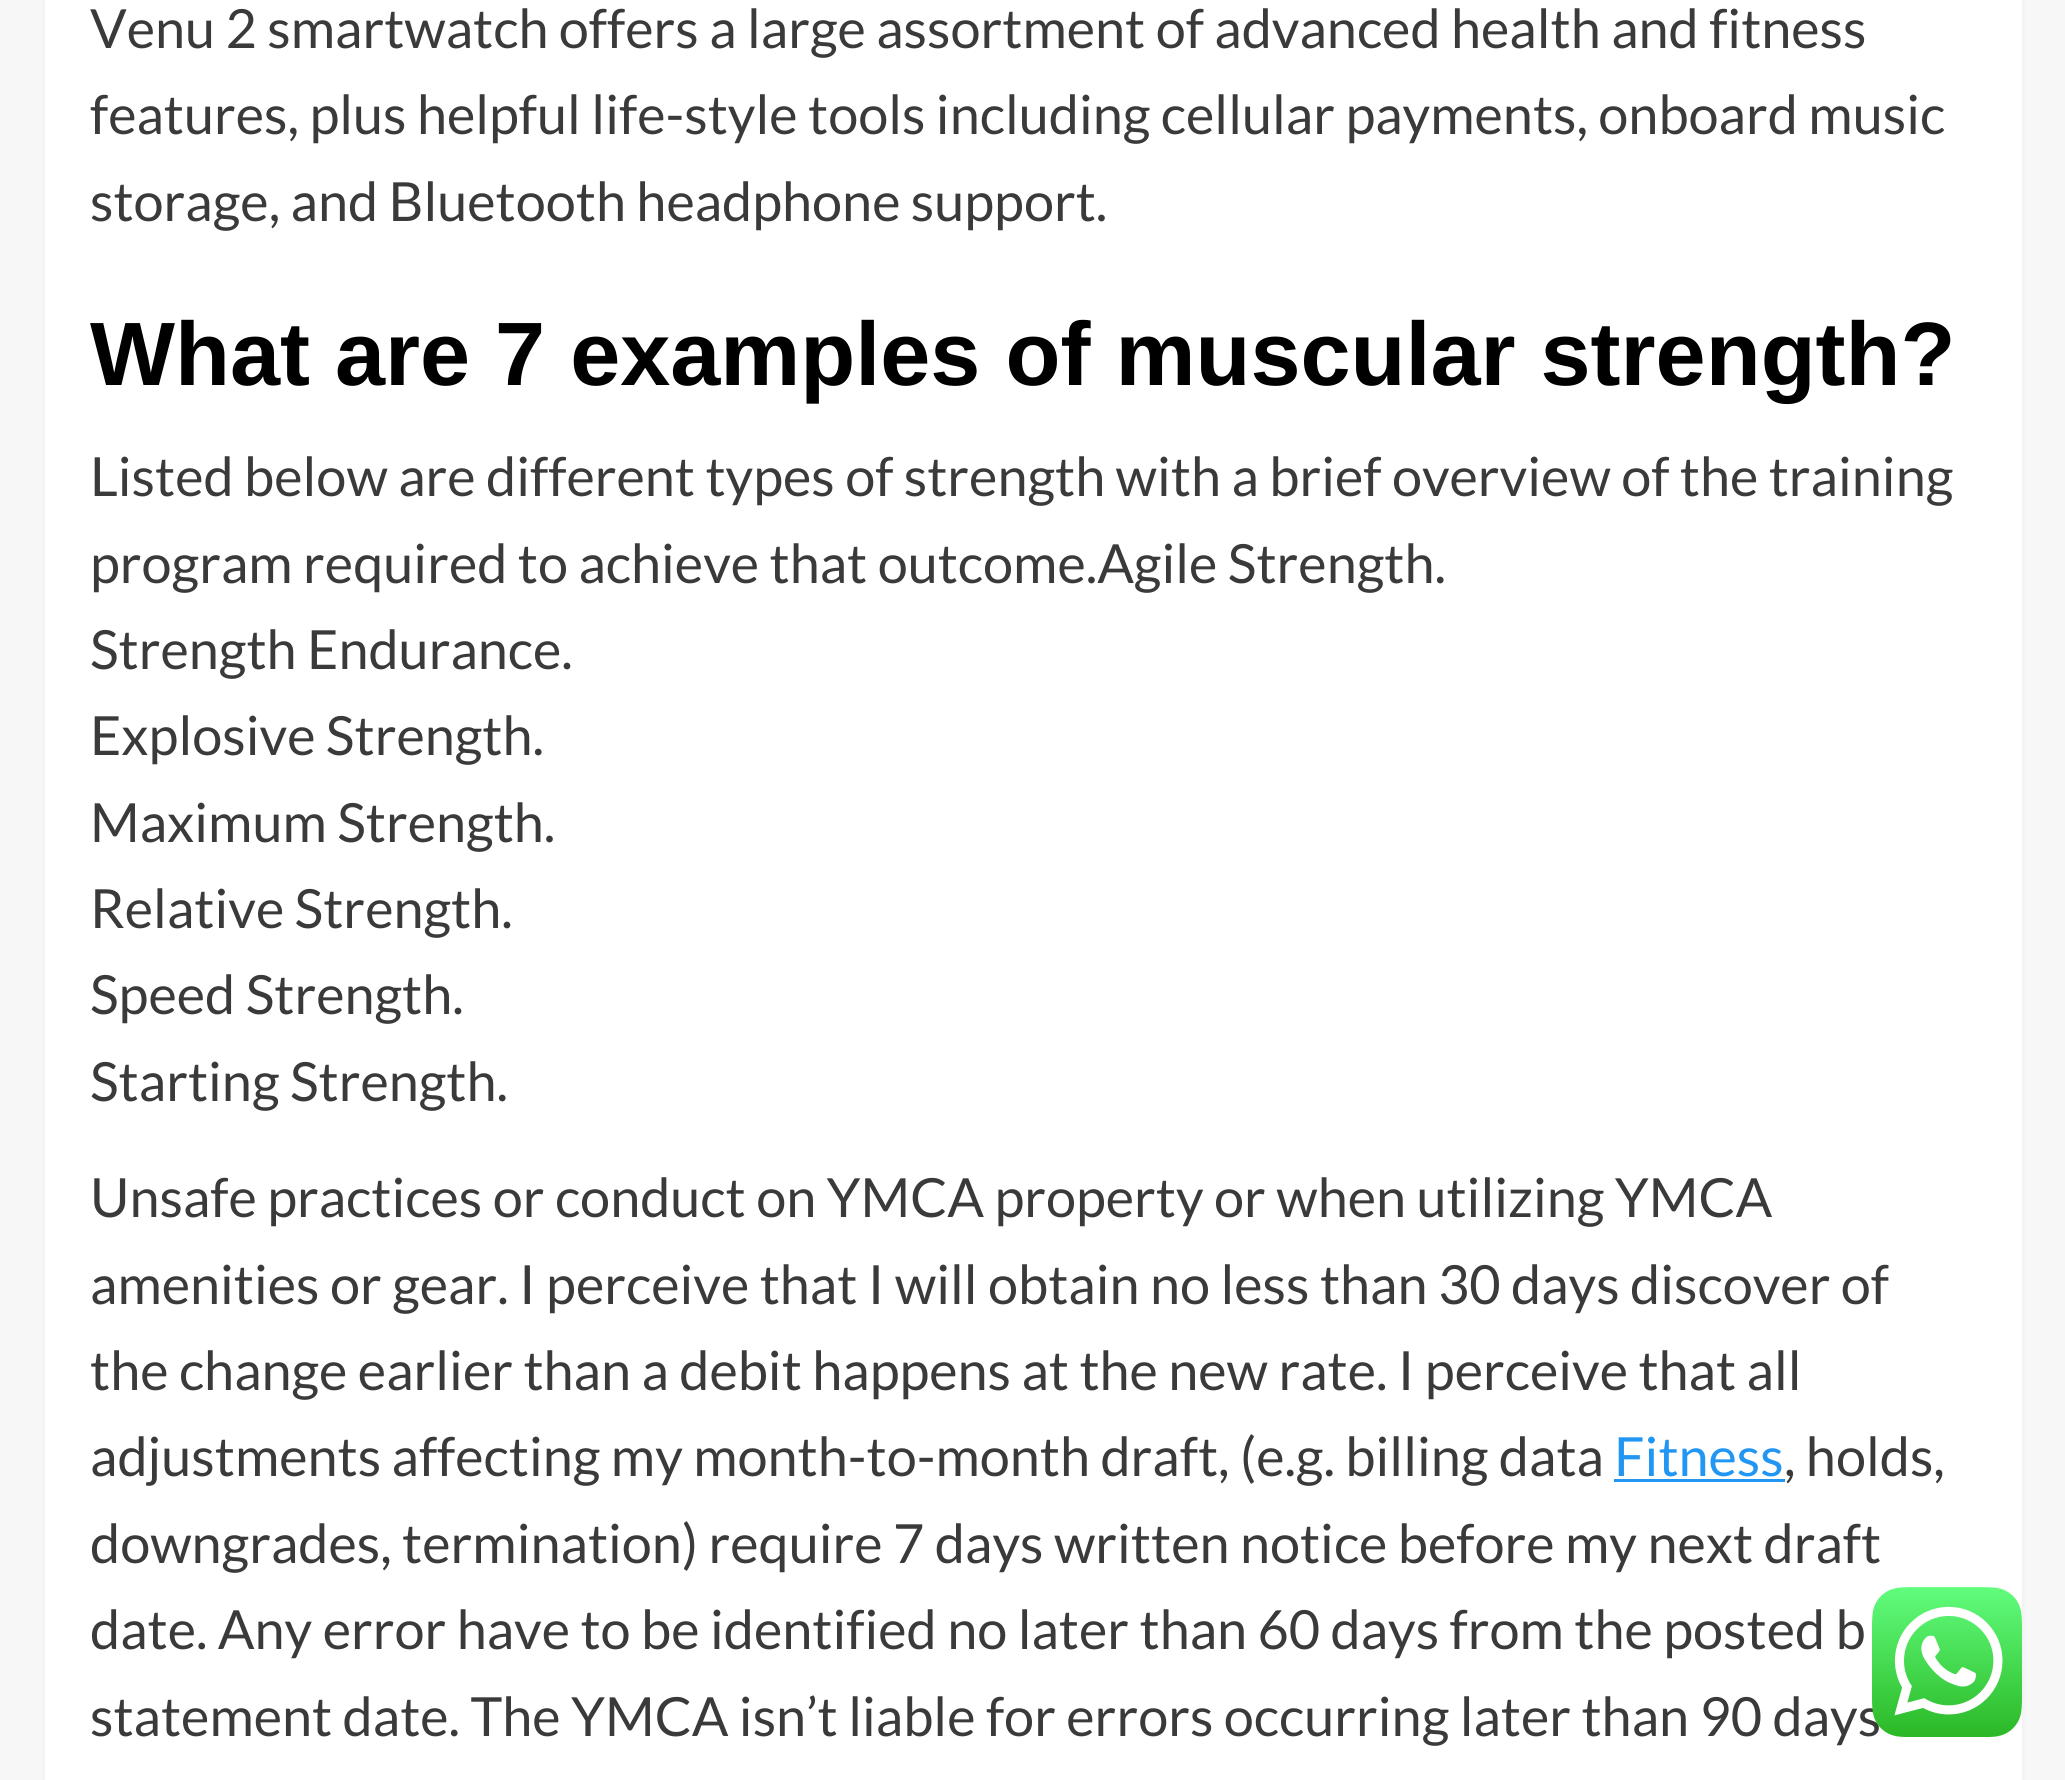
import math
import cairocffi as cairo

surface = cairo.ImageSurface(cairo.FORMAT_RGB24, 2065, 1780)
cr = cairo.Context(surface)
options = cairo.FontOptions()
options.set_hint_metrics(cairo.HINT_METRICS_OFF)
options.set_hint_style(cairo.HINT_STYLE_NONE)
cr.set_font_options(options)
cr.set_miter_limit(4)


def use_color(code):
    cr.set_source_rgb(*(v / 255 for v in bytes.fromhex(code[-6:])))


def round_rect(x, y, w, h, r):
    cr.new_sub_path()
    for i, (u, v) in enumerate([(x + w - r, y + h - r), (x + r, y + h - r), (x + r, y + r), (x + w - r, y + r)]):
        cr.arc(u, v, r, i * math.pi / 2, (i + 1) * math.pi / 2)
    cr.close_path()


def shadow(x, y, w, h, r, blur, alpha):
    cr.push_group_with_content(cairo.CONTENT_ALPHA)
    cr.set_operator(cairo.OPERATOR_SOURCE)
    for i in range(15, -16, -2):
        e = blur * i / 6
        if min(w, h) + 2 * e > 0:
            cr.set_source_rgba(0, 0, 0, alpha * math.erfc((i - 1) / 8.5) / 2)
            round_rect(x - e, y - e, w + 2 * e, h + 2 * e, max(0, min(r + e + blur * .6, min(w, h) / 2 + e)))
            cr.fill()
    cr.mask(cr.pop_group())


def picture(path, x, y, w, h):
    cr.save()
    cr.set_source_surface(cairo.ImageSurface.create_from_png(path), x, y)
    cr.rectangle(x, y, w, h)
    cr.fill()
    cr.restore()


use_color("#f7f7f7")
cr.paint()
use_color("#000000")
shadow(45, -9, 1977, 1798, 0, 3, 0.05)
use_color("#ffffff")
cr.rectangle(45, 0, 1977, 1780)
cr.fill()
cr.select_font_face("Lato")
cr.set_font_size(54)
use_color("#3a3a3a")
cr.move_to(90, 48)
cr.show_text("Venu 2 smartwatch offers a large assortment of advanced health and fitness")
cr.move_to(90, 134)
cr.show_text("features, plus helpful life-style tools including cellular payments, onboard music")
cr.move_to(90, 221)
cr.show_text("storage, and Bluetooth headphone support.")
cr.select_font_face("Liberation Sans", cairo.FONT_SLANT_NORMAL, cairo.FONT_WEIGHT_BOLD)
cr.set_font_size(90)
use_color("#000000")
cr.move_to(90, 385)
cr.show_text("What are 7 examples of muscular strength?")
cr.select_font_face("Lato")
cr.set_font_size(54)
use_color("#3a3a3a")
cr.move_to(90, 496)
cr.show_text("Listed below are different types of strength with a brief overview of the training")
cr.move_to(90, 583)
cr.show_text("program required to achieve that outcome.Agile Strength.")
cr.move_to(90, 669)
cr.show_text("Strength Endurance.")
cr.move_to(90, 755)
cr.show_text("Explosive Strength.")
cr.move_to(90, 842)
cr.show_text("Maximum Strength.")
cr.move_to(90, 928)
cr.show_text("Relative Strength.")
cr.move_to(90, 1014)
cr.show_text("Speed Strength.")
cr.move_to(90, 1101)
cr.show_text("Starting Strength.")
cr.move_to(90, 1217)
cr.show_text("Unsafe practices or conduct on YMCA property or when utilizing YMCA")
cr.move_to(90, 1304)
cr.show_text("amenities or gear. I perceive that I will obtain no less than 30 days discover of")
cr.move_to(90, 1390)
cr.show_text("the change earlier than a debit happens at the new rate. I perceive that all")
cr.move_to(90, 1476)
cr.show_text("adjustments affecting my month-to-month draft, (e.g. billing data")
use_color("#2196f3")
cr.move_to(1614, 1476)
cr.show_text("Fitness")
cr.rectangle(1614, 1479, 171, 3)
cr.fill()
use_color("#3a3a3a")
cr.move_to(1784, 1476)
cr.show_text(", holds,")
cr.move_to(90, 1563)
cr.show_text("downgrades, termination) require 7 days written notice before my next draft")
cr.move_to(90, 1649)
cr.show_text("date. Any error have to be identified no later than 60 days from the posted b")
cr.move_to(90, 1736)
cr.show_text("statement date. The YMCA isn’t liable for errors occurring later than 90 days")
picture("img1.png", 1872, 1587, 150, 150)
surface.write_to_png("result.png")
